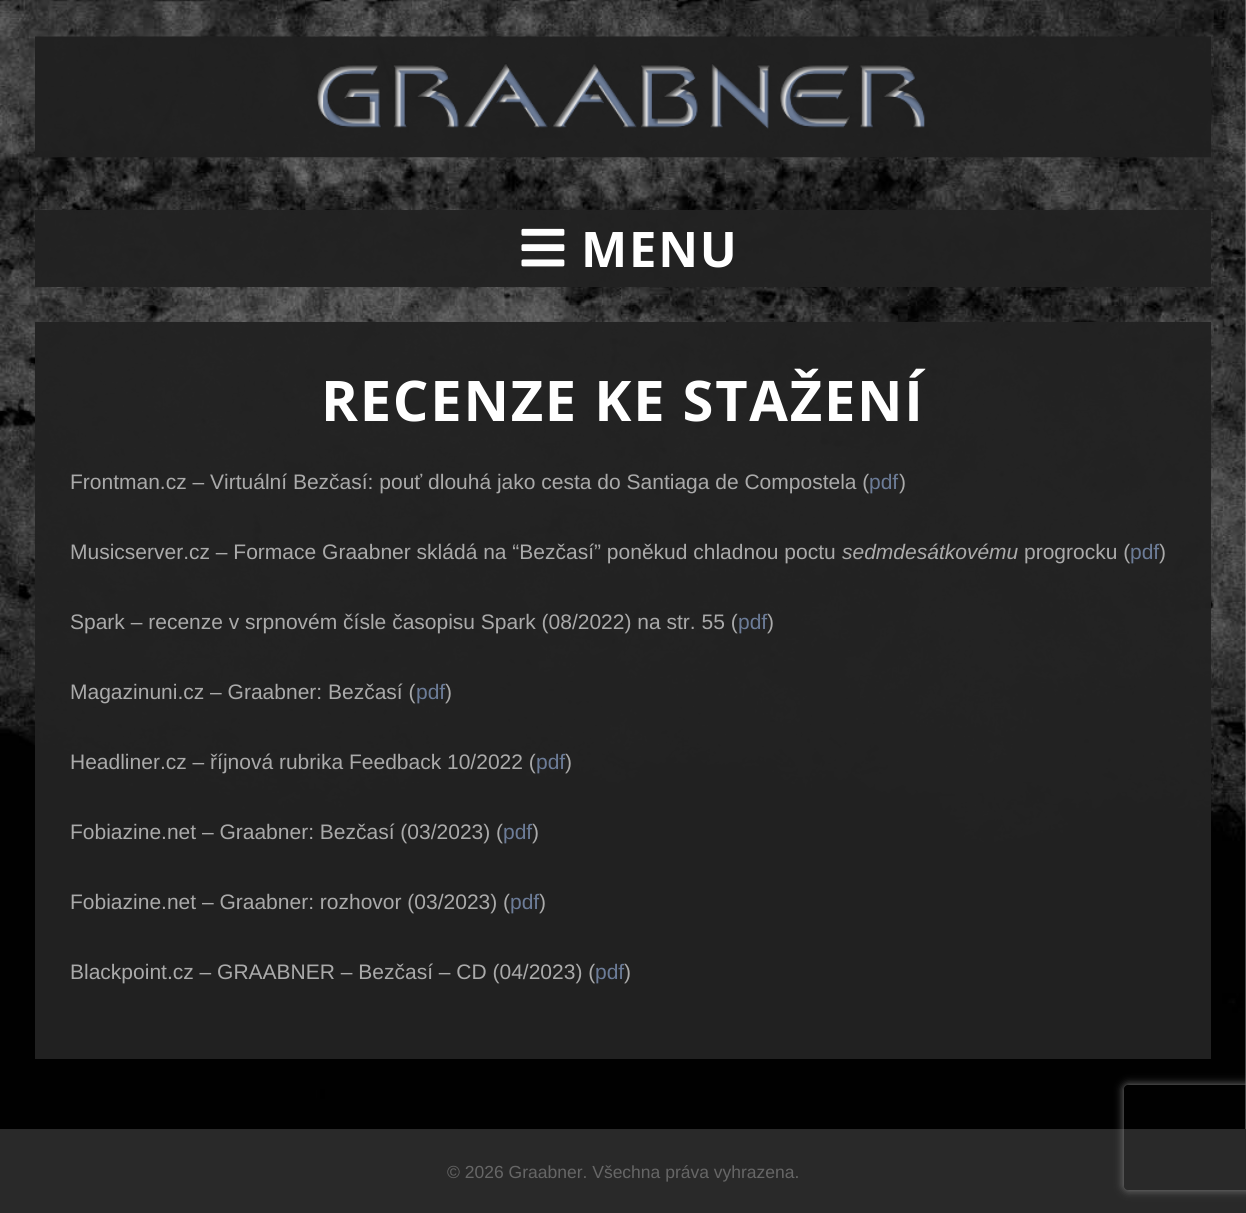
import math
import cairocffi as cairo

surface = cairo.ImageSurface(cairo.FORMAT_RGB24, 1246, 1213)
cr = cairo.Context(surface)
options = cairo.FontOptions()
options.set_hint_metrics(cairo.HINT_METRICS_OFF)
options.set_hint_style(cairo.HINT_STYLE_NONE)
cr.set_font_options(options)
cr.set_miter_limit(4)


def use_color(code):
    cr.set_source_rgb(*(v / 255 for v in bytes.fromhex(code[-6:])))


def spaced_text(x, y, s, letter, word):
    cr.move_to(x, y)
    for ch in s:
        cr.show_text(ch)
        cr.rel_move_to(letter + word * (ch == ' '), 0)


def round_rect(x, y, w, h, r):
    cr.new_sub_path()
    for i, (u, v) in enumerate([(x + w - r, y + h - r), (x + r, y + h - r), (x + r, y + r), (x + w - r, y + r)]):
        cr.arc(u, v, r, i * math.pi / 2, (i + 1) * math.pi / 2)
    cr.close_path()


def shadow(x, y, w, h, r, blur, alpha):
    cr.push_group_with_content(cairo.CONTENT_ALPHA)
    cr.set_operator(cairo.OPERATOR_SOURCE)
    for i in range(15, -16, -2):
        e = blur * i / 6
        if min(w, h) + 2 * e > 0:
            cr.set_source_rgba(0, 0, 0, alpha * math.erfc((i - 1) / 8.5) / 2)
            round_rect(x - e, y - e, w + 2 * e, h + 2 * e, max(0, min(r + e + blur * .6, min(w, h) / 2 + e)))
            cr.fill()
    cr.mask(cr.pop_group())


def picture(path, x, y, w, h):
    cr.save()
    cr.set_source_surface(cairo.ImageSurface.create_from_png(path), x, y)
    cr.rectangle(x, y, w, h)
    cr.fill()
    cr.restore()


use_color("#ffffff")
cr.paint()
picture("img1.png", 0, 0, 1246, 1129)
picture("img2.png", 35, 36, 1176, 122)
cr.set_source_rgba(0.133, 0.133, 0.133, 0.97)
cr.rectangle(35, 210, 1176, 77)
cr.fill()
picture("img3.png", 521, 228, 44, 39)
cr.select_font_face("Open Sans", cairo.FONT_SLANT_NORMAL, cairo.FONT_WEIGHT_BOLD)
cr.set_font_size(49)
use_color("#ffffff")
spaced_text(581, 267, "MENU", 1.75, 0)
cr.set_source_rgba(0.133, 0.133, 0.133, 0.97)
cr.rectangle(35, 322, 1176, 737)
cr.fill()
cr.set_font_size(56)
use_color("#ffffff")
spaced_text(321, 421, "RECENZE KE STAŽENÍ", 1.75, 0)
cr.select_font_face("Liberation Sans")
cr.set_font_size(21)
use_color("#aaaaaa")
cr.move_to(70, 489)
cr.show_text("Frontman.cz – Virtuální Bezčasí: pouť dlouhá jako cesta do Santiaga de Compostela (")
use_color("#6c7c98")
cr.move_to(869, 489)
cr.show_text("pdf")
use_color("#aaaaaa")
cr.move_to(899, 489)
cr.show_text(")")
cr.move_to(70, 559)
cr.show_text("Musicserver.cz – Formace Graabner skládá na “Bezčasí” poněkud chladnou poctu")
cr.select_font_face("Liberation Sans", cairo.FONT_SLANT_ITALIC)
cr.move_to(842, 559)
cr.show_text("sedmdesátkovému")
cr.select_font_face("Liberation Sans")
cr.move_to(1024, 559)
cr.show_text("progrocku (")
use_color("#6c7c98")
cr.move_to(1130, 559)
cr.show_text("pdf")
use_color("#aaaaaa")
cr.move_to(1159, 559)
cr.show_text(")")
cr.move_to(70, 629)
cr.show_text("Spark – recenze v srpnovém čísle časopisu Spark (08/2022) na str. 55 (")
use_color("#6c7c98")
cr.move_to(738, 629)
cr.show_text("pdf")
use_color("#aaaaaa")
cr.move_to(767, 629)
cr.show_text(")")
cr.move_to(70, 699)
cr.show_text("Magazinuni.cz – Graabner: Bezčasí (")
use_color("#6c7c98")
cr.move_to(416, 699)
cr.show_text("pdf")
use_color("#aaaaaa")
cr.move_to(445, 699)
cr.show_text(")")
cr.move_to(70, 769)
cr.show_text("Headliner.cz – říjnová rubrika Feedback 10/2022 (")
use_color("#6c7c98")
cr.move_to(536, 769)
cr.show_text("pdf")
use_color("#aaaaaa")
cr.move_to(565, 769)
cr.show_text(")")
cr.move_to(70, 839)
cr.show_text("Fobiazine.net – Graabner: Bezčasí (03/2023) (")
use_color("#6c7c98")
cr.move_to(503, 839)
cr.show_text("pdf")
use_color("#aaaaaa")
cr.move_to(532, 839)
cr.show_text(")")
cr.move_to(70, 909)
cr.show_text("Fobiazine.net – Graabner: rozhovor (03/2023) (")
use_color("#6c7c98")
cr.move_to(510, 909)
cr.show_text("pdf")
use_color("#aaaaaa")
cr.move_to(539, 909)
cr.show_text(")")
cr.move_to(70, 979)
cr.show_text("Blackpoint.cz – GRAABNER – Bezčasí – CD (04/2023) (")
use_color("#6c7c98")
cr.move_to(595, 979)
cr.show_text("pdf")
use_color("#aaaaaa")
cr.move_to(624, 979)
cr.show_text(")")
use_color("#292929")
cr.rectangle(0, 1129, 1246, 84)
cr.fill()
cr.set_font_size(17.5)
use_color("#666666")
cr.move_to(447, 1178)
cr.show_text("© 2026 Graabner. Všechna práva vyhrazena.")
cr.save()
cr.set_fill_rule(cairo.FILL_RULE_EVEN_ODD)
cr.new_path()
cr.move_to(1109, 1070)
cr.line_to(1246, 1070)
cr.line_to(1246, 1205)
cr.line_to(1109, 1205)
cr.close_path()
cr.move_to(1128, 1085)
cr.line_to(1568, 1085)
cr.curve_to(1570, 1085, 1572, 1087, 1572, 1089)
cr.line_to(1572, 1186)
cr.curve_to(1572, 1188, 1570, 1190, 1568, 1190)
cr.line_to(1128, 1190)
cr.curve_to(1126, 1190, 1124, 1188, 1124, 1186)
cr.line_to(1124, 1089)
cr.curve_to(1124, 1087, 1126, 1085, 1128, 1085)
cr.close_path()
cr.clip()
use_color("#808080")
shadow(1124, 1085, 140, 105, 4, 4.5, 1)
cr.restore()
surface.write_to_png("result.png")
